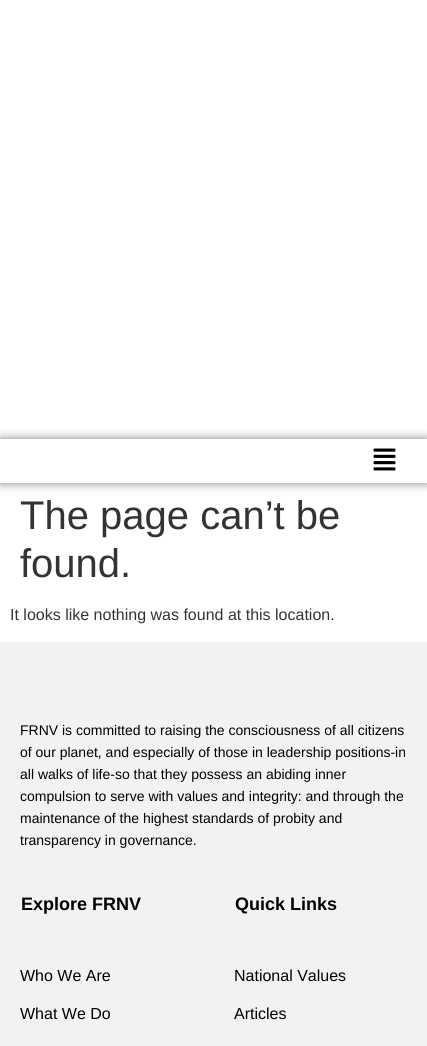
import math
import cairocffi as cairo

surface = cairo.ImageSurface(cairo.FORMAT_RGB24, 427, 1046)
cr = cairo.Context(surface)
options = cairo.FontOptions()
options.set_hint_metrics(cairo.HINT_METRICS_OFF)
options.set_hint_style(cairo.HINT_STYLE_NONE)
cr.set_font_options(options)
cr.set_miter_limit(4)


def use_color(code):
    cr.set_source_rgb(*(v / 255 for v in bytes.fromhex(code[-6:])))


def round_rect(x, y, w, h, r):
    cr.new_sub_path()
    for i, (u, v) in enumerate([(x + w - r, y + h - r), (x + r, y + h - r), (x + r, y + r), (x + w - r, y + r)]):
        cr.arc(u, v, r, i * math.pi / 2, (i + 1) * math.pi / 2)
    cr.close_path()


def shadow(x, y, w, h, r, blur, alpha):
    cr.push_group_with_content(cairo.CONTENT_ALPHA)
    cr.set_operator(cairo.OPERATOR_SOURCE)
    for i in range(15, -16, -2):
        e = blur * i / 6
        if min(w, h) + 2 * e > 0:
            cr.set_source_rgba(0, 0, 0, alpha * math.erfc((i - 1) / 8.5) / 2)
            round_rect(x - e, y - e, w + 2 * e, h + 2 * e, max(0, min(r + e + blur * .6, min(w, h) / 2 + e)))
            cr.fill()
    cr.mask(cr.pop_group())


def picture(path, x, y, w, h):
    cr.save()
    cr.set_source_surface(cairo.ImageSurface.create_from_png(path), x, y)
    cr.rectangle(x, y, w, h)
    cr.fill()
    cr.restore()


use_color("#ffffff")
cr.paint()
cr.save()
cr.set_fill_rule(cairo.FILL_RULE_EVEN_ODD)
cr.new_path()
cr.move_to(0, 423)
cr.line_to(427, 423)
cr.line_to(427, 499)
cr.line_to(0, 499)
cr.close_path()
cr.move_to(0, 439)
cr.line_to(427, 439)
cr.line_to(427, 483)
cr.line_to(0, 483)
cr.close_path()
cr.clip()
use_color("#000000")
shadow(0, 439, 427, 44, 0, 5, 0.5)
cr.restore()
picture("img1.png", 373, 448, 23, 23)
cr.select_font_face("Liberation Sans")
cr.set_font_size(40)
use_color("#333333")
cr.move_to(20, 529)
cr.show_text("The page can’t be")
cr.move_to(20, 577)
cr.show_text("found.")
cr.set_font_size(16)
cr.move_to(10, 620)
cr.show_text("It looks like nothing was found at this location.")
use_color("#f2f2f2")
cr.rectangle(0, 642, 427, 404)
cr.fill()
cr.set_font_size(14)
use_color("#000000")
cr.move_to(20, 735)
cr.show_text("FRNV is committed to raising the consciousness of all citizens")
cr.move_to(20, 757)
cr.show_text("of our planet, and especially of those in leadership positions-in")
cr.move_to(20, 779)
cr.show_text("all walks of life-so that they possess an abiding inner")
cr.move_to(20, 801)
cr.show_text("compulsion to serve with values and integrity: and through the")
cr.move_to(20, 823)
cr.show_text("maintenance of the highest standards of probity and")
cr.move_to(20, 845)
cr.show_text("transparency in governance.")
cr.select_font_face("Liberation Sans", cairo.FONT_SLANT_NORMAL, cairo.FONT_WEIGHT_BOLD)
cr.set_font_size(18)
cr.move_to(21, 910)
cr.show_text("Explore FRNV")
cr.select_font_face("Liberation Sans")
cr.set_font_size(16)
cr.move_to(20, 981)
cr.show_text("Who We Are")
cr.move_to(20, 1019)
cr.show_text("What We Do")
cr.select_font_face("Liberation Sans", cairo.FONT_SLANT_NORMAL, cairo.FONT_WEIGHT_BOLD)
cr.set_font_size(18)
cr.move_to(235, 910)
cr.show_text("Quick Links")
cr.select_font_face("Liberation Sans")
cr.set_font_size(16)
cr.move_to(234, 981)
cr.show_text("National Values")
cr.move_to(234, 1019)
cr.show_text("Articles")
surface.write_to_png("result.png")
